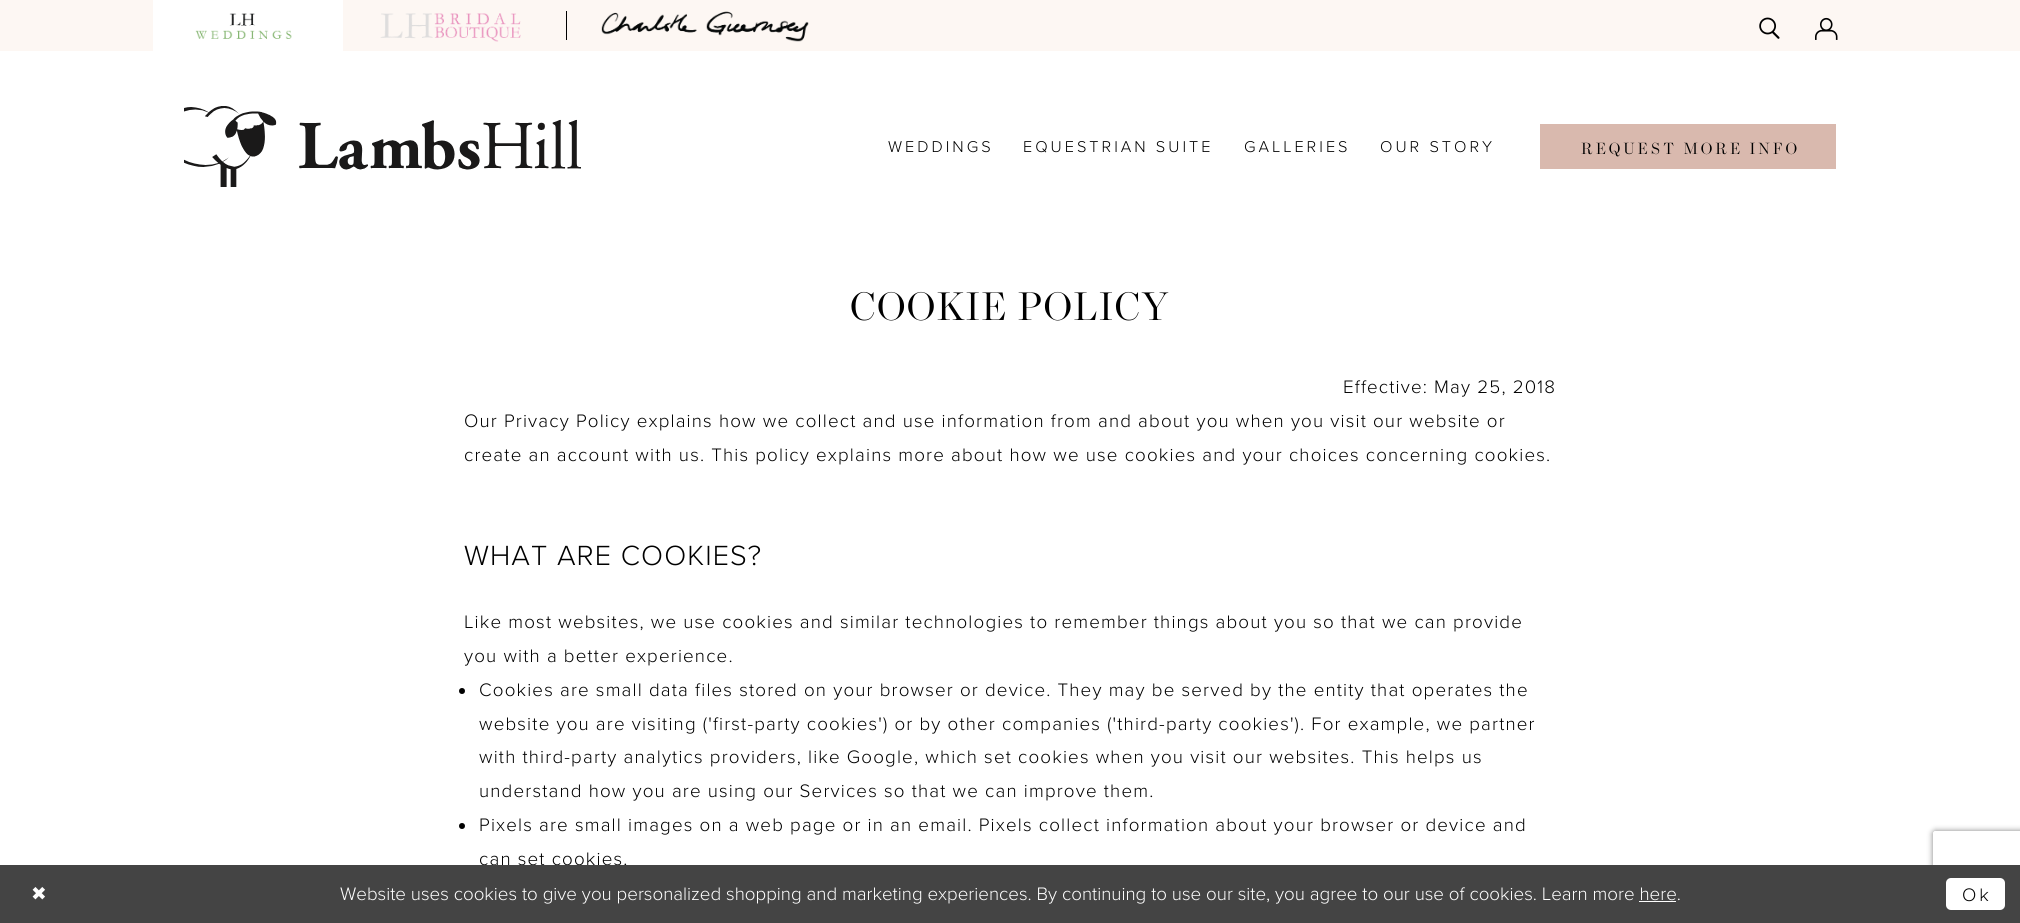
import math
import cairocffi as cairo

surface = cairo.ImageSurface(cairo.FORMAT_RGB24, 2020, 923)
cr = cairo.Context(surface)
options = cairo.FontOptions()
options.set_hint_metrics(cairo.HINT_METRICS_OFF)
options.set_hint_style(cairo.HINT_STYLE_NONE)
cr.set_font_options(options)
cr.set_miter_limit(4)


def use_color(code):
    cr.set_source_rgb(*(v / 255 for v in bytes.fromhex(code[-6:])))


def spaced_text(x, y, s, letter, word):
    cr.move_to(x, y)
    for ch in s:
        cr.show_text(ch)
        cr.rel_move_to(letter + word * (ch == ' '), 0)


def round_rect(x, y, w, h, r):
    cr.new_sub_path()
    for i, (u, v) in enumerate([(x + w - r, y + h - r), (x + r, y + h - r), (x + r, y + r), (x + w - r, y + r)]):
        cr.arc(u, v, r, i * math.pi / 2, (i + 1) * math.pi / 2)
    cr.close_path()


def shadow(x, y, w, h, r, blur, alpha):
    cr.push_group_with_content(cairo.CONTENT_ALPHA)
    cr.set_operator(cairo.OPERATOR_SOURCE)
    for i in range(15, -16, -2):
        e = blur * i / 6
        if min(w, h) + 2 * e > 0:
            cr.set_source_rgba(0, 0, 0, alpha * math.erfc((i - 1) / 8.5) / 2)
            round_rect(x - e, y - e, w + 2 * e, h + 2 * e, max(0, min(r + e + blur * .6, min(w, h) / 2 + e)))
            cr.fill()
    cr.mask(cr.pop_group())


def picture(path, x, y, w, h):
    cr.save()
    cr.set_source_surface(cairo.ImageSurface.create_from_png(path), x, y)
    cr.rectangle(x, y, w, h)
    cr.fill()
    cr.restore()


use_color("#ffffff")
cr.paint()
use_color("#fdf7f3")
cr.rectangle(0, 0, 2020, 51)
cr.fill()
use_color("#ffffff")
cr.rectangle(153, 0, 190, 51)
cr.fill()
picture("img1.png", 195, 13, 97, 26)
picture("img2.png", 380, 13, 141, 29)
use_color("#000000")
cr.rectangle(566, 11, 1, 29)
cr.fill()
picture("img3.png", 601, 11, 208, 31)
picture("img4.png", 1759, 17, 21, 22)
picture("img5.png", 1815, 17, 23, 23)
picture("img6.png", 184, 106, 397, 81)
cr.select_font_face("Proxima Nova Light")
cr.set_font_size(16.25)
spaced_text(888, 152, "WEDDINGS", 3, 0)
spaced_text(1023, 152, "EQUESTRIAN SUITE", 3, 0)
spaced_text(1244, 152, "GALLERIES", 3, 0)
spaced_text(1380, 152, "OUR STORY", 3, 0)
use_color("#d9b9ae")
cr.rectangle(1540, 124, 296, 45)
cr.fill()
cr.select_font_face("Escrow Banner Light")
use_color("#000000")
spaced_text(1581, 154, "REQUEST MORE INFO", 2.9, 0)
cr.set_font_size(40)
spaced_text(850, 320, "COOKIE POLICY", 1.25, 0)
cr.select_font_face("Proxima Nova Light")
cr.set_font_size(18.75)
spaced_text(1343, 393, "Effective: May 25, 2018", 1.17, 0)
spaced_text(464, 427, "Our Privacy Policy explains how we collect and use information from and about you when you visit our website or", 1.17, 0)
spaced_text(464, 461, "create an account with us. This policy explains more about how we use cookies and your choices concerning cookies.", 1.17, 0)
cr.set_font_size(28.75)
spaced_text(464, 565, "WHAT ARE COOKIES?", 1.1, 0)
cr.set_font_size(18.75)
spaced_text(464, 628, "Like most websites, we use cookies and similar technologies to remember things about you so that we can provide", 1.17, 0)
spaced_text(464, 662, "you with a better experience.", 1.17, 0)
cr.new_path()
cr.arc(462, 691, 3, 0, 2 * math.pi)
cr.fill()
spaced_text(479, 696, "Cookies are small data files stored on your browser or device. They may be served by the entity that operates the", 1.17, 0)
spaced_text(479, 730, "website you are visiting ('first-party cookies') or by other companies ('third-party cookies'). For example, we partner", 1.17, 0)
spaced_text(479, 763, "with third-party analytics providers, like Google, which set cookies when you visit our websites. This helps us", 1.17, 0)
spaced_text(479, 797, "understand how you are using our Services so that we can improve them.", 1.17, 0)
cr.new_path()
cr.arc(462, 826, 3, 0, 2 * math.pi)
cr.fill()
spaced_text(479, 831, "Pixels are small images on a web page or in an email. Pixels collect information about your browser or device and", 1.17, 0)
spaced_text(479, 865, "can set cookies.", 1.17, 0)
cr.save()
cr.set_fill_rule(cairo.FILL_RULE_EVEN_ODD)
cr.new_path()
cr.move_to(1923, 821)
cr.line_to(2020, 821)
cr.line_to(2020, 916)
cr.line_to(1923, 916)
cr.close_path()
cr.move_to(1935.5, 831)
cr.line_to(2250.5, 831)
cr.curve_to(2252, 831, 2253, 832, 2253, 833.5)
cr.line_to(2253, 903.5)
cr.curve_to(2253, 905, 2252, 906, 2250.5, 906)
cr.line_to(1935.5, 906)
cr.curve_to(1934, 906, 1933, 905, 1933, 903.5)
cr.line_to(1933, 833.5)
cr.curve_to(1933, 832, 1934, 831, 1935.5, 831)
cr.close_path()
cr.clip()
use_color("#808080")
shadow(1933, 831, 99, 75, 2.5, 3, 1)
cr.restore()
use_color("#444444")
cr.rectangle(0, 865, 2020, 58)
cr.fill()
cr.select_font_face("DejaVu Sans")
use_color("#ffffff")
spaced_text(31, 900, "✖", 3, 0)
cr.select_font_face("Proxima Nova Light")
cr.move_to(340, 900)
cr.show_text("Website uses cookies to give you personalized shopping and marketing experiences. By continuing to use our site, you agree to our use of cookies. Learn more here.")
cr.rectangle(1639, 901, 37, 1)
cr.fill()
round_rect(1946, 878, 59, 32, 5)
cr.fill()
use_color("#000000")
spaced_text(1962, 901, "Ok", 3, 0)
surface.write_to_png("result.png")
